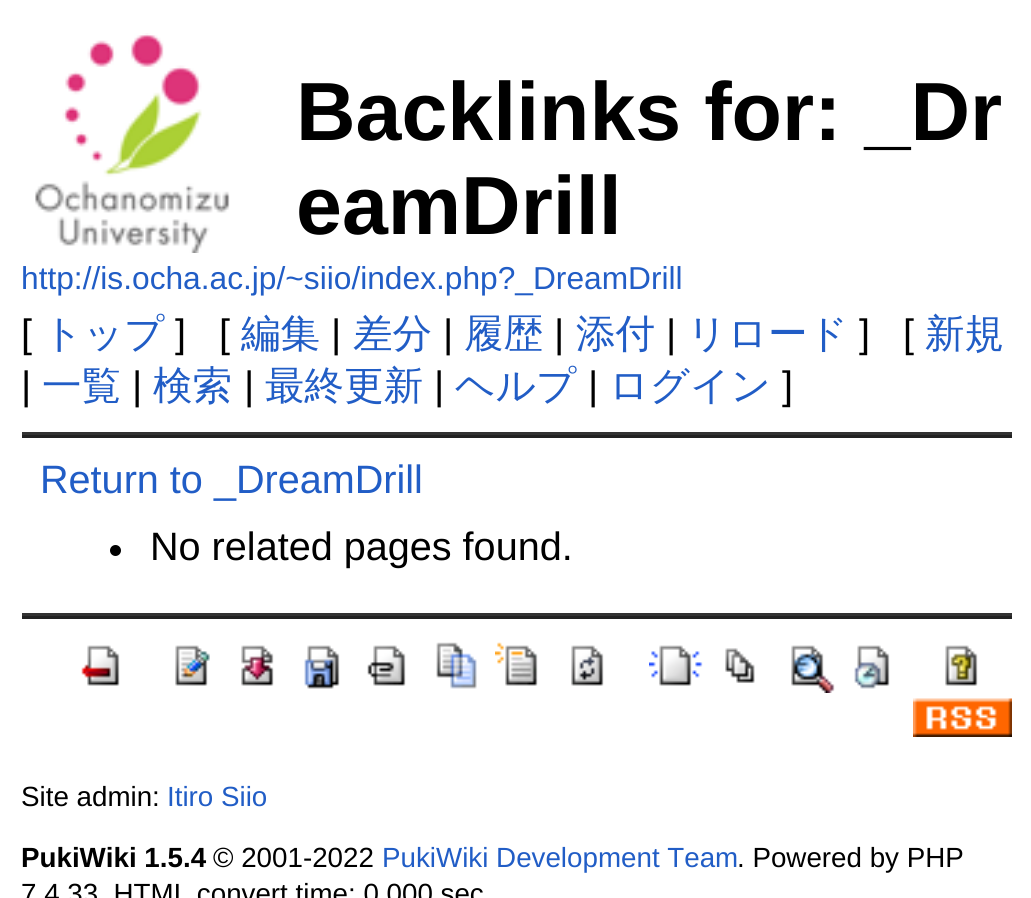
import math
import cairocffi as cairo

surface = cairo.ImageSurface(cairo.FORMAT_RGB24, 1031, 898)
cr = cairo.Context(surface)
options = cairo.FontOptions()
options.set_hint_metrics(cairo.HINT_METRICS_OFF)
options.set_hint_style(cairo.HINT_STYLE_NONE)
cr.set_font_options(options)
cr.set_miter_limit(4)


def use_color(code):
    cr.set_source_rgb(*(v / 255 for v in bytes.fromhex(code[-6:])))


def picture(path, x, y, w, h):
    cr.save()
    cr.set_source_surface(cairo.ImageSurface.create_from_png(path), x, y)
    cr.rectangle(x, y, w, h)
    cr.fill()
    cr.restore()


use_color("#ffffff")
cr.paint()
picture("img1.png", 35, 33, 195, 220)
cr.select_font_face("Liberation Sans", cairo.FONT_SLANT_NORMAL, cairo.FONT_WEIGHT_BOLD)
cr.set_font_size(82.5)
use_color("#000000")
cr.move_to(296, 140)
cr.show_text("Backlinks for: _Dr")
cr.move_to(296, 234)
cr.show_text("eamDrill")
cr.select_font_face("Liberation Sans")
cr.set_font_size(31.7)
use_color("#215dc6")
cr.move_to(21, 289)
cr.show_text("http://is.ocha.ac.jp/~siio/index.php?_DreamDrill")
cr.set_font_size(39.6)
use_color("#000000")
cr.move_to(21, 347)
cr.show_text("[")
cr.select_font_face("WenQuanYi Zen Hei Medium")
use_color("#215dc6")
cr.move_to(43, 347)
cr.show_text("トップ")
cr.select_font_face("Liberation Sans")
use_color("#000000")
cr.move_to(175, 347)
cr.show_text("]")
cr.move_to(219, 347)
cr.show_text("[")
cr.select_font_face("WenQuanYi Zen Hei Medium")
use_color("#215dc6")
cr.move_to(241, 347)
cr.show_text("編集")
cr.select_font_face("Liberation Sans")
use_color("#000000")
cr.move_to(331, 347)
cr.show_text("|")
cr.select_font_face("WenQuanYi Zen Hei Medium")
use_color("#215dc6")
cr.move_to(353, 347)
cr.show_text("差分")
cr.select_font_face("Liberation Sans")
use_color("#000000")
cr.move_to(443, 347)
cr.show_text("|")
cr.select_font_face("WenQuanYi Zen Hei Medium")
use_color("#215dc6")
cr.move_to(464, 347)
cr.show_text("履歴")
cr.select_font_face("Liberation Sans")
use_color("#000000")
cr.move_to(554, 347)
cr.show_text("|")
cr.select_font_face("WenQuanYi Zen Hei Medium")
use_color("#215dc6")
cr.move_to(576, 347)
cr.show_text("添付")
cr.select_font_face("Liberation Sans")
use_color("#000000")
cr.move_to(666, 347)
cr.show_text("|")
cr.select_font_face("WenQuanYi Zen Hei Medium")
use_color("#215dc6")
cr.move_to(687, 347)
cr.show_text("リロード")
cr.select_font_face("Liberation Sans")
use_color("#000000")
cr.move_to(859, 347)
cr.show_text("]")
cr.move_to(903, 347)
cr.show_text("[")
cr.select_font_face("WenQuanYi Zen Hei Medium")
use_color("#215dc6")
cr.move_to(925, 347)
cr.show_text("新規")
cr.select_font_face("Liberation Sans")
use_color("#000000")
cr.move_to(21, 399)
cr.show_text("|")
cr.select_font_face("WenQuanYi Zen Hei Medium")
use_color("#215dc6")
cr.move_to(42, 399)
cr.show_text("一覧")
cr.select_font_face("Liberation Sans")
use_color("#000000")
cr.move_to(132, 399)
cr.show_text("|")
cr.select_font_face("WenQuanYi Zen Hei Medium")
use_color("#215dc6")
cr.move_to(153, 399)
cr.show_text("検索")
cr.select_font_face("Liberation Sans")
use_color("#000000")
cr.move_to(244, 399)
cr.show_text("|")
cr.select_font_face("WenQuanYi Zen Hei Medium")
use_color("#215dc6")
cr.move_to(265, 399)
cr.show_text("最終更新")
cr.select_font_face("Liberation Sans")
use_color("#000000")
cr.move_to(434, 399)
cr.show_text("|")
cr.select_font_face("WenQuanYi Zen Hei Medium")
use_color("#215dc6")
cr.move_to(455, 399)
cr.show_text("ヘルプ")
cr.select_font_face("Liberation Sans")
use_color("#000000")
cr.move_to(588, 399)
cr.show_text("|")
cr.select_font_face("WenQuanYi Zen Hei Medium")
use_color("#215dc6")
cr.move_to(609, 399)
cr.show_text("ログイン")
cr.select_font_face("Liberation Sans")
use_color("#000000")
cr.move_to(782, 399)
cr.show_text("]")
use_color("#333333")
cr.rectangle(22, 432, 990, 3)
cr.fill()
use_color("#222222")
cr.rectangle(22, 435, 990, 3)
cr.fill()
use_color("#215dc6")
cr.move_to(40, 493)
cr.show_text("Return to _DreamDrill")
use_color("#000000")
cr.new_path()
cr.arc(115.5, 550.5, 5.5, 0, 2 * math.pi)
cr.fill()
cr.move_to(150, 560)
cr.show_text("No related pages found.")
use_color("#333333")
cr.rectangle(22, 613, 990, 3)
cr.fill()
use_color("#222222")
cr.rectangle(22, 616, 990, 3)
cr.fill()
picture("img2.png", 81, 645, 39, 41)
picture("img3.png", 175, 645, 35, 41)
picture("img4.png", 241, 645, 33, 41)
picture("img5.png", 304, 645, 36, 44)
picture("img6.png", 367, 645, 39, 41)
picture("img7.png", 436, 642, 41, 47)
picture("img8.png", 495, 642, 43, 44)
picture("img9.png", 571, 645, 33, 41)
picture("img10.png", 649, 645, 54, 41)
picture("img11.png", 725, 648, 30, 35)
picture("img12.png", 791, 645, 44, 48)
picture("img13.png", 854, 645, 36, 44)
picture("img14.png", 945, 645, 33, 41)
picture("img15.png", 913, 698, 99, 39)
cr.set_font_size(27.75)
use_color("#000000")
cr.move_to(21, 806)
cr.show_text("Site admin:")
use_color("#215dc6")
cr.move_to(167, 806)
cr.show_text("Itiro Siio")
cr.select_font_face("Liberation Sans", cairo.FONT_SLANT_NORMAL, cairo.FONT_WEIGHT_BOLD)
use_color("#000000")
cr.move_to(21, 867)
cr.show_text("PukiWiki 1.5.4")
cr.select_font_face("Liberation Sans")
cr.move_to(213, 867)
cr.show_text("© 2001-2022")
use_color("#215dc6")
cr.move_to(382, 867)
cr.show_text("PukiWiki Development Team")
use_color("#000000")
cr.move_to(737, 867)
cr.show_text(". Powered by PHP")
cr.move_to(21, 903)
cr.show_text("7.4.33. HTML convert time: 0.000 sec")
surface.write_to_png("result.png")
